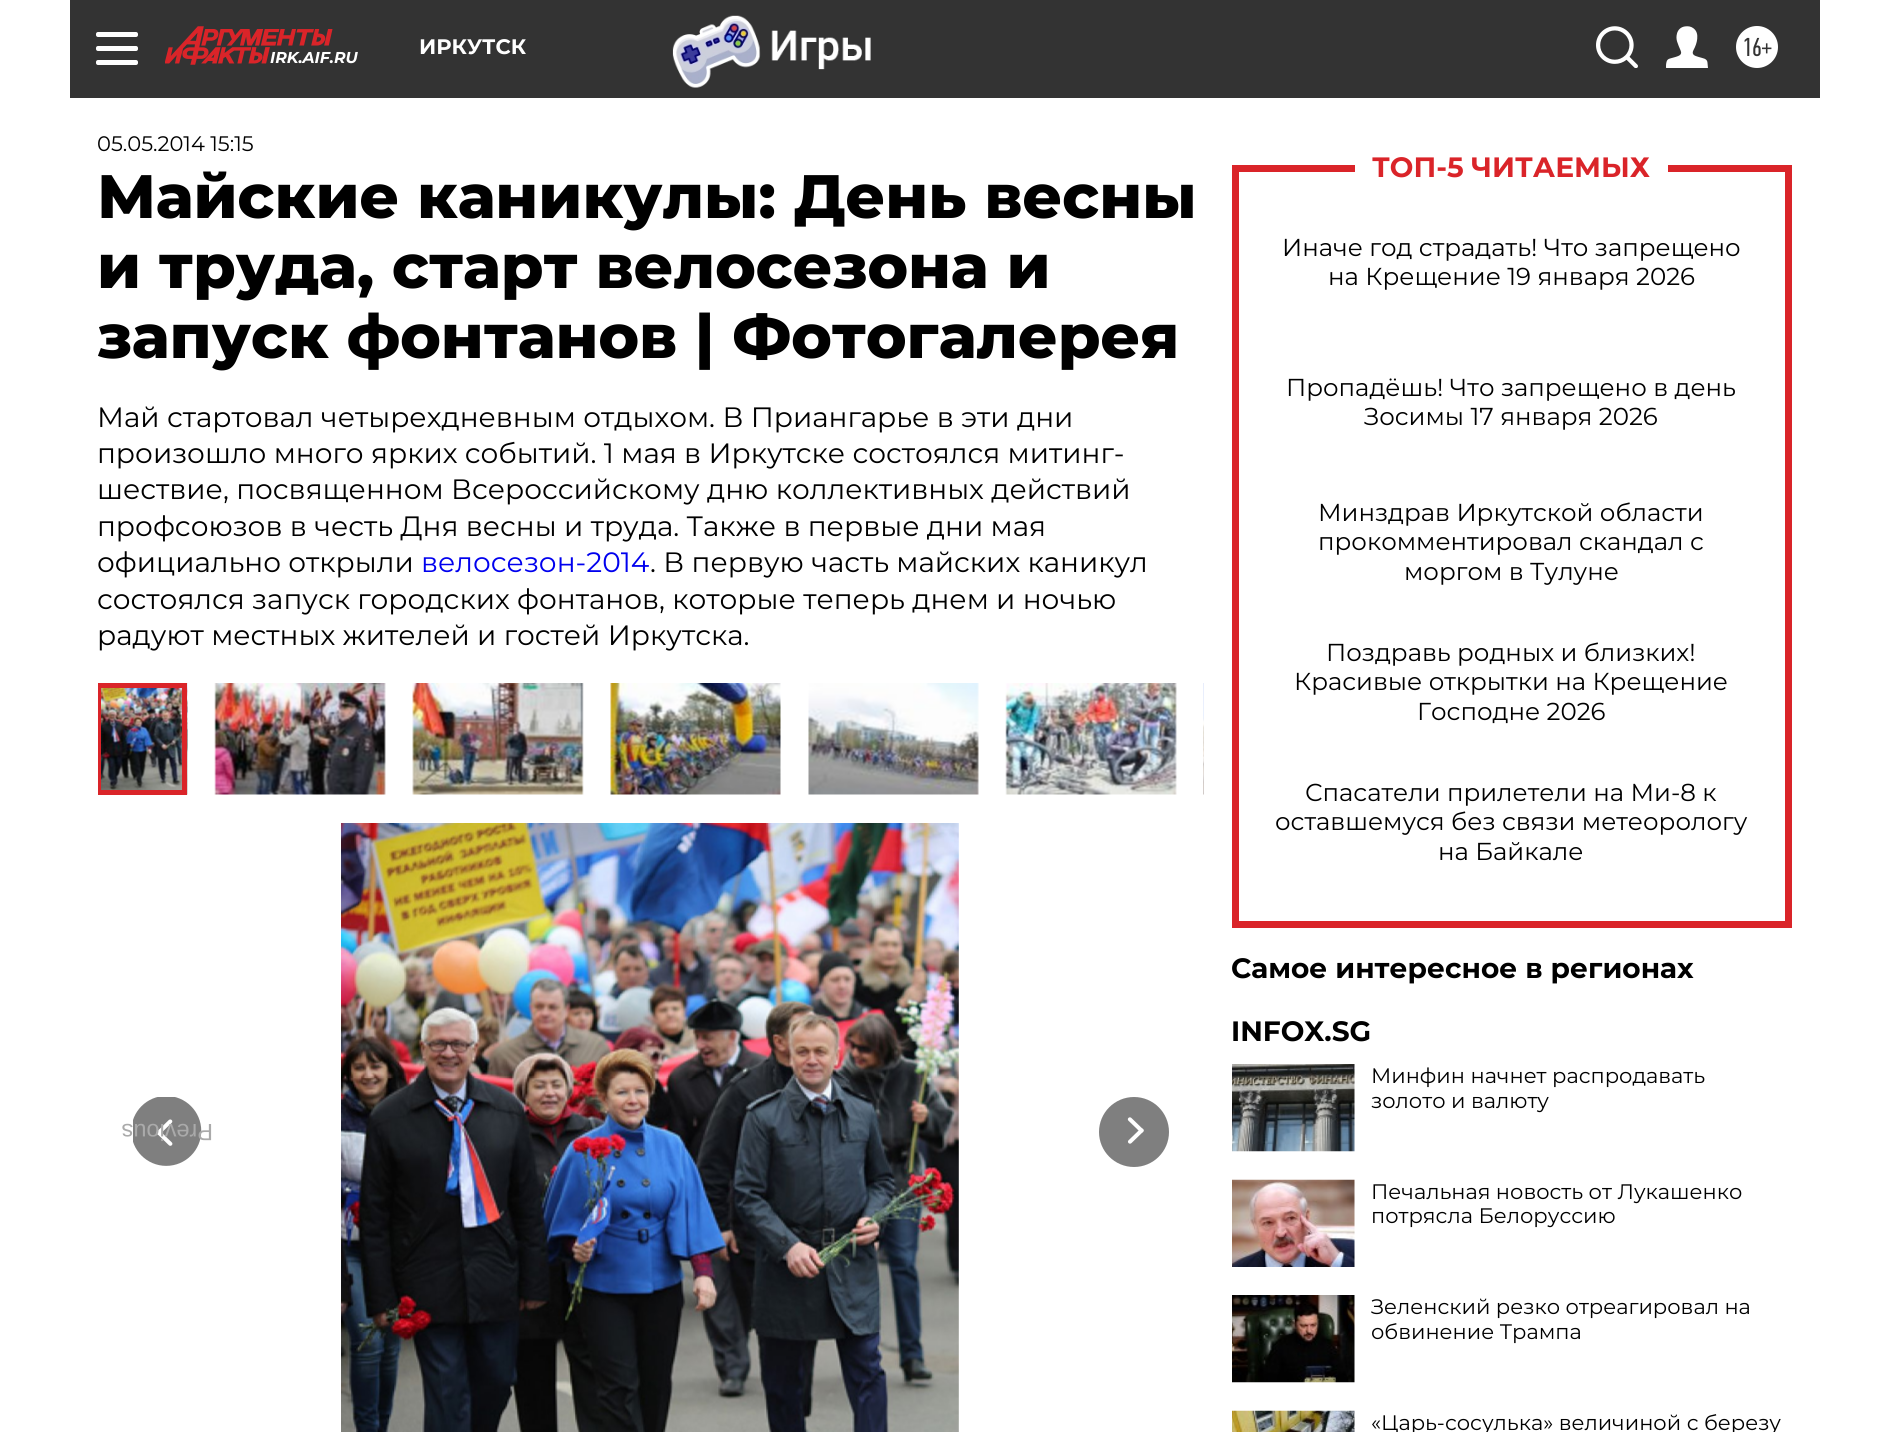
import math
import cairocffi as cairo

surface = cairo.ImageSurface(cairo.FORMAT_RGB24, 1887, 1432)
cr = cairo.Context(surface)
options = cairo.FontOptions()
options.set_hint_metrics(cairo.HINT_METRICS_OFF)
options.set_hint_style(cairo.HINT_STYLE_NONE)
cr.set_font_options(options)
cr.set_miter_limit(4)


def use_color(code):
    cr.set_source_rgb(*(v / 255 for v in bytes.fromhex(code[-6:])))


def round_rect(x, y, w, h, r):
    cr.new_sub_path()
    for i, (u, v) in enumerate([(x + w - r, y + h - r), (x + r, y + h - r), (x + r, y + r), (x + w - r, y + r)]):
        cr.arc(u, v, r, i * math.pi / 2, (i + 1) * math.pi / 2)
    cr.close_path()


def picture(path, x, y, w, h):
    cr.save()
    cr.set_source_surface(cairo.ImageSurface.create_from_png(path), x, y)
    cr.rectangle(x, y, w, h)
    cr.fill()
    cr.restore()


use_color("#ffffff")
cr.paint()
use_color("#333333")
cr.rectangle(70, 0, 1750, 98)
cr.fill()
use_color("#ffffff")
round_rect(96, 32, 42, 5, 2)
cr.fill()
round_rect(96, 46, 42, 5, 2)
cr.fill()
round_rect(96, 60, 42, 5, 2)
cr.fill()
cr.select_font_face("Montserrat", cairo.FONT_SLANT_NORMAL, cairo.FONT_WEIGHT_BOLD)
cr.set_font_size(21)
cr.move_to(419, 54)
cr.show_text("ИРКУТСК")
picture("img1.png", 672, 15, 199, 73)
picture("img2.png", 1596, 26, 42, 42)
picture("img3.png", 1666, 26, 42, 42)
cr.arc(1757, 47, 21, 0, 2 * math.pi)
cr.fill()
cr.select_font_face("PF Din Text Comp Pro")
cr.set_font_size(26)
use_color("#333333")
cr.move_to(1742, 56)
cr.show_text("16+")
picture("img4.png", 165, 26, 168, 39)
cr.select_font_face("Montserrat", cairo.FONT_SLANT_ITALIC, cairo.FONT_WEIGHT_BOLD)
cr.set_font_size(15.75)
use_color("#ffffff")
cr.move_to(270, 63)
cr.show_text("IRK.AIF.RU")
cr.select_font_face("Montserrat")
cr.set_font_size(21)
use_color("#000000")
cr.move_to(97, 151)
cr.show_text("05.05.2014 15:15")
cr.select_font_face("Montserrat ExtraBold")
cr.set_font_size(61.25)
cr.move_to(97, 218)
cr.show_text("Майские каникулы: День весны")
cr.move_to(97, 288)
cr.show_text("и труда, старт велосезона и")
cr.move_to(97, 358)
cr.show_text("запуск фонтанов | Фотогалерея")
cr.select_font_face("Montserrat")
cr.set_font_size(28)
cr.move_to(97, 427)
cr.show_text("Май стартовал четырехдневным отдыхом. В Приангарье в эти дни")
cr.move_to(97, 463)
cr.show_text("произошло много ярких событий. 1 мая в Иркутске состоялся митинг-")
cr.move_to(97, 499)
cr.show_text("шествие, посвященном Всероссийскому дню коллективных действий")
cr.move_to(97, 536)
cr.show_text("профсоюзов в честь Дня весны и труда. Также в первые дни мая")
cr.move_to(97, 572)
cr.show_text("официально открыли")
use_color("#0000ee")
cr.move_to(421, 572)
cr.show_text("велосезон-2014")
use_color("#000000")
cr.move_to(650, 572)
cr.show_text(". В первую часть майских каникул")
cr.move_to(97, 609)
cr.show_text("состоялся запуск городских фонтанов, которые теперь днем и ночью")
cr.move_to(97, 645)
cr.show_text("радуют местных жителей и гостей Иркутска.")
picture("img5.png", 101, 683, 87, 112)
cr.save()
cr.rectangle(98, 683, 1106, 140)
cr.clip()
cr.rectangle(98.5, 685.5, 86, 107)
use_color("#da2429")
cr.set_line_width(5)
cr.stroke()
cr.restore()
picture("img6.png", 214, 683, 172, 112)
picture("img7.png", 412, 683, 172, 112)
picture("img8.png", 610, 683, 171, 112)
picture("img9.png", 808, 683, 171, 112)
picture("img10.png", 1005, 683, 172, 112)
picture("img11.png", 1203, 683, 1, 112)
picture("img12.png", 133, 1097, 69, 69)
cr.select_font_face("Liberation Sans")
cr.set_font_size(23.5)
use_color("#aaaaaa")
cr.save()
cr.translate(213, 1124)
cr.rotate(180 * math.pi / 180)
cr.move_to(0, 0)
cr.show_text("Previous")
cr.restore()
picture("img13.png", 341, 823, 618, 609)
picture("img14.png", 1099, 1097, 70, 70)
use_color("#da2429")
cr.rectangle(1785, 165, 7, 763)
cr.fill()
cr.rectangle(1232, 921, 560, 7)
cr.fill()
cr.rectangle(1232, 165, 7, 763)
cr.fill()
cr.rectangle(1232, 165, 123, 7)
cr.fill()
cr.select_font_face("Montserrat", cairo.FONT_SLANT_NORMAL, cairo.FONT_WEIGHT_BOLD)
cr.set_font_size(28)
cr.move_to(1372, 177)
cr.show_text("ТОП-5 ЧИТАЕМЫХ")
cr.rectangle(1668, 165, 124, 7)
cr.fill()
cr.select_font_face("Montserrat")
cr.set_font_size(24.5)
use_color("#000000")
cr.move_to(1282, 256)
cr.show_text("Иначе год страдать! Что запрещено")
cr.move_to(1328, 285)
cr.show_text("на Крещение 19 января 2026")
cr.move_to(1286, 396)
cr.show_text("Пропадёшь! Что запрещено в день")
cr.move_to(1364, 425)
cr.show_text("Зосимы 17 января 2026")
cr.move_to(1318, 521)
cr.show_text("Минздрав Иркутской области")
cr.move_to(1318, 550)
cr.show_text("прокомментировал скандал с")
cr.move_to(1404, 580)
cr.show_text("моргом в Тулуне")
cr.move_to(1326, 661)
cr.show_text("Поздравь родных и близких!")
cr.move_to(1294, 690)
cr.show_text("Красивые открытки на Крещение")
cr.move_to(1417, 720)
cr.show_text("Господне 2026")
cr.move_to(1305, 801)
cr.show_text("Спасатели прилетели на Ми-8 к")
cr.move_to(1275, 830)
cr.show_text("оставшемуся без связи метеорологу")
cr.move_to(1438, 860)
cr.show_text("на Байкале")
cr.select_font_face("Montserrat", cairo.FONT_SLANT_NORMAL, cairo.FONT_WEIGHT_BOLD)
cr.set_font_size(28)
cr.move_to(1231, 978)
cr.show_text("Самое интересное в регионах")
cr.move_to(1231, 1041)
cr.show_text("INFOX.SG")
picture("img15.png", 1232, 1064, 123, 88)
cr.select_font_face("Montserrat")
cr.set_font_size(21)
cr.move_to(1371, 1083)
cr.show_text("Минфин начнет распродавать")
cr.move_to(1371, 1108)
cr.show_text("золото и валюту")
picture("img16.png", 1232, 1179, 123, 88)
cr.move_to(1371, 1199)
cr.show_text("Печальная новость от Лукашенко")
cr.move_to(1371, 1223)
cr.show_text("потрясла Белоруссию")
picture("img17.png", 1232, 1295, 123, 88)
cr.move_to(1371, 1314)
cr.show_text("Зеленский резко отреагировал на")
cr.move_to(1371, 1339)
cr.show_text("обвинение Трампа")
picture("img18.png", 1232, 1410, 123, 22)
cr.move_to(1371, 1430)
cr.show_text("«Царь-сосулька» величиной с березу")
surface.write_to_png("result.png")
